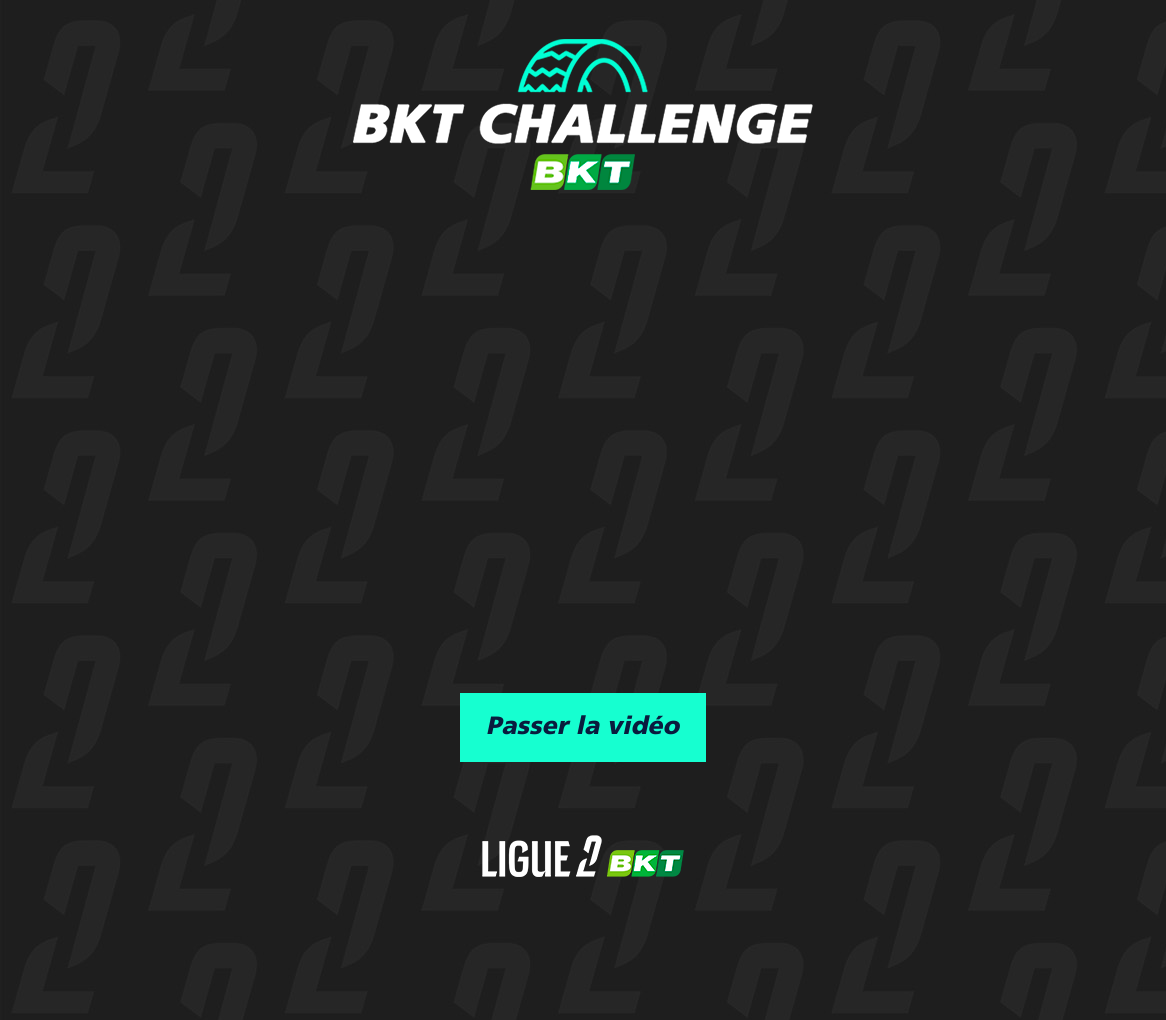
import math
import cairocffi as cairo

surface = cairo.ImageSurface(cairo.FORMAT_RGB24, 1166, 1020)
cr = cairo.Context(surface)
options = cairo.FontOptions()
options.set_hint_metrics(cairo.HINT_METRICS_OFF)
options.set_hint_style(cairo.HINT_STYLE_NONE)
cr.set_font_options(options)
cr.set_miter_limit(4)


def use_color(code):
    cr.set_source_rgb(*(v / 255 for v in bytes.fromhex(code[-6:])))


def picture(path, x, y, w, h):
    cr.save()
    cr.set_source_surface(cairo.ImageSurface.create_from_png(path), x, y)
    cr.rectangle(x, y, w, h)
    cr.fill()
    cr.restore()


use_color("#ffffff")
cr.paint()
picture("img1.png", 0, 0, 1166, 1020)
picture("img2.png", 353, 39, 460, 151)
use_color("#16ffd0")
cr.rectangle(460, 693, 246, 69)
cr.fill()
cr.select_font_face("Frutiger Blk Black", cairo.FONT_SLANT_ITALIC)
cr.set_font_size(25)
use_color("#091c3e")
cr.move_to(486, 734)
cr.show_text("Passer la vidéo")
picture("img3.png", 482, 835, 202, 42)
surface.write_to_png("result.png")
